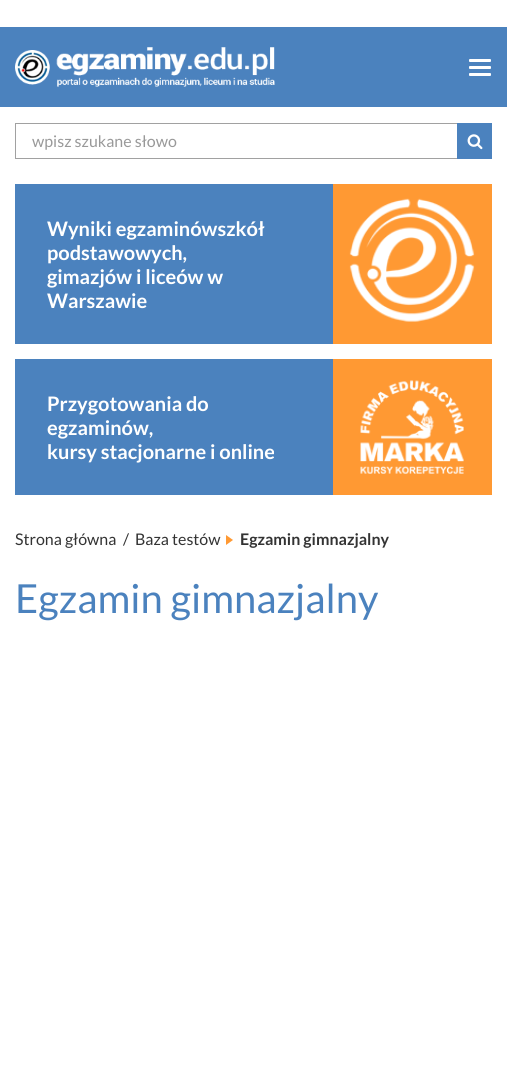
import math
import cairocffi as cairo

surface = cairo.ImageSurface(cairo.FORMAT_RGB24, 507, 1068)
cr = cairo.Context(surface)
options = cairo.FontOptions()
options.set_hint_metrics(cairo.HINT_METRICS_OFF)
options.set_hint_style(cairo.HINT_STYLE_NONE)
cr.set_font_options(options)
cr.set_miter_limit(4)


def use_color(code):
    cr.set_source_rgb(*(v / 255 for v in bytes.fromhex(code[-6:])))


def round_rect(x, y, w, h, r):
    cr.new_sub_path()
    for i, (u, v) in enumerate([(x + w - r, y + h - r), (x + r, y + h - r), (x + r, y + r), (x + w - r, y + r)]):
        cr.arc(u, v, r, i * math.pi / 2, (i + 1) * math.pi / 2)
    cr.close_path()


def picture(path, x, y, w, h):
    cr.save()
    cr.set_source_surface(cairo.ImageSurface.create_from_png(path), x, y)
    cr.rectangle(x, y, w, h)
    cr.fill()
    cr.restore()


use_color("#ffffff")
cr.paint()
use_color("#4b82be")
cr.rectangle(0, 27, 507, 80)
cr.fill()
picture("img1.png", 15, 47, 260, 40)
use_color("#ffffff")
round_rect(469, 59, 22, 3, 1)
cr.fill()
round_rect(469, 66, 22, 3, 1)
cr.fill()
round_rect(469, 73, 22, 3, 1)
cr.fill()
cr.rectangle(15.5, 123.5, 476, 35)
use_color("#a1a1a1")
cr.set_line_width(1)
cr.stroke()
cr.select_font_face("Lato")
cr.set_font_size(16)
use_color("#999999")
cr.move_to(32, 147)
cr.show_text("wpisz szukane słowo")
use_color("#4b82be")
cr.rectangle(457, 123, 35, 36)
cr.fill()
picture("img2.png", 467, 134, 16, 16)
cr.rectangle(15, 184, 318, 160)
cr.fill()
cr.select_font_face("Lato", cairo.FONT_SLANT_NORMAL, cairo.FONT_WEIGHT_BOLD)
cr.set_font_size(20)
use_color("#ffffff")
cr.move_to(47, 236)
cr.show_text("Wyniki egzaminówszkół")
cr.move_to(47, 260)
cr.show_text("podstawowych,")
cr.move_to(47, 284)
cr.show_text("gimazjów i liceów w")
cr.move_to(47, 308)
cr.show_text("Warszawie")
use_color("#ff9933")
cr.rectangle(333, 184, 159, 160)
cr.fill()
picture("img3.png", 349, 198, 126, 124)
use_color("#4b82be")
cr.rectangle(15, 359, 318, 136)
cr.fill()
use_color("#ffffff")
cr.move_to(47, 411)
cr.show_text("Przygotowania do")
cr.move_to(47, 435)
cr.show_text("egzaminów,")
cr.move_to(47, 459)
cr.show_text("kursy stacjonarne i online")
use_color("#ff9933")
cr.rectangle(333, 359, 159, 136)
cr.fill()
picture("img4.png", 360, 380, 104, 94)
cr.select_font_face("Lato")
cr.set_font_size(16)
use_color("#333333")
cr.move_to(15, 545)
cr.show_text("Strona główna")
cr.move_to(123, 545)
cr.show_text("/")
cr.move_to(135, 545)
cr.show_text("Baza testów")
use_color("#ff9933")
cr.new_path()
cr.move_to(226, 545)
cr.line_to(226, 535)
cr.line_to(233, 540)
cr.close_path()
cr.fill()
cr.select_font_face("Lato", cairo.FONT_SLANT_NORMAL, cairo.FONT_WEIGHT_BOLD)
use_color("#333333")
cr.move_to(240, 545)
cr.show_text("Egzamin gimnazjalny")
cr.select_font_face("Lato")
cr.set_font_size(40)
use_color("#4b82be")
cr.move_to(15, 613)
cr.show_text("Egzamin gimnazjalny")
surface.write_to_png("result.png")
